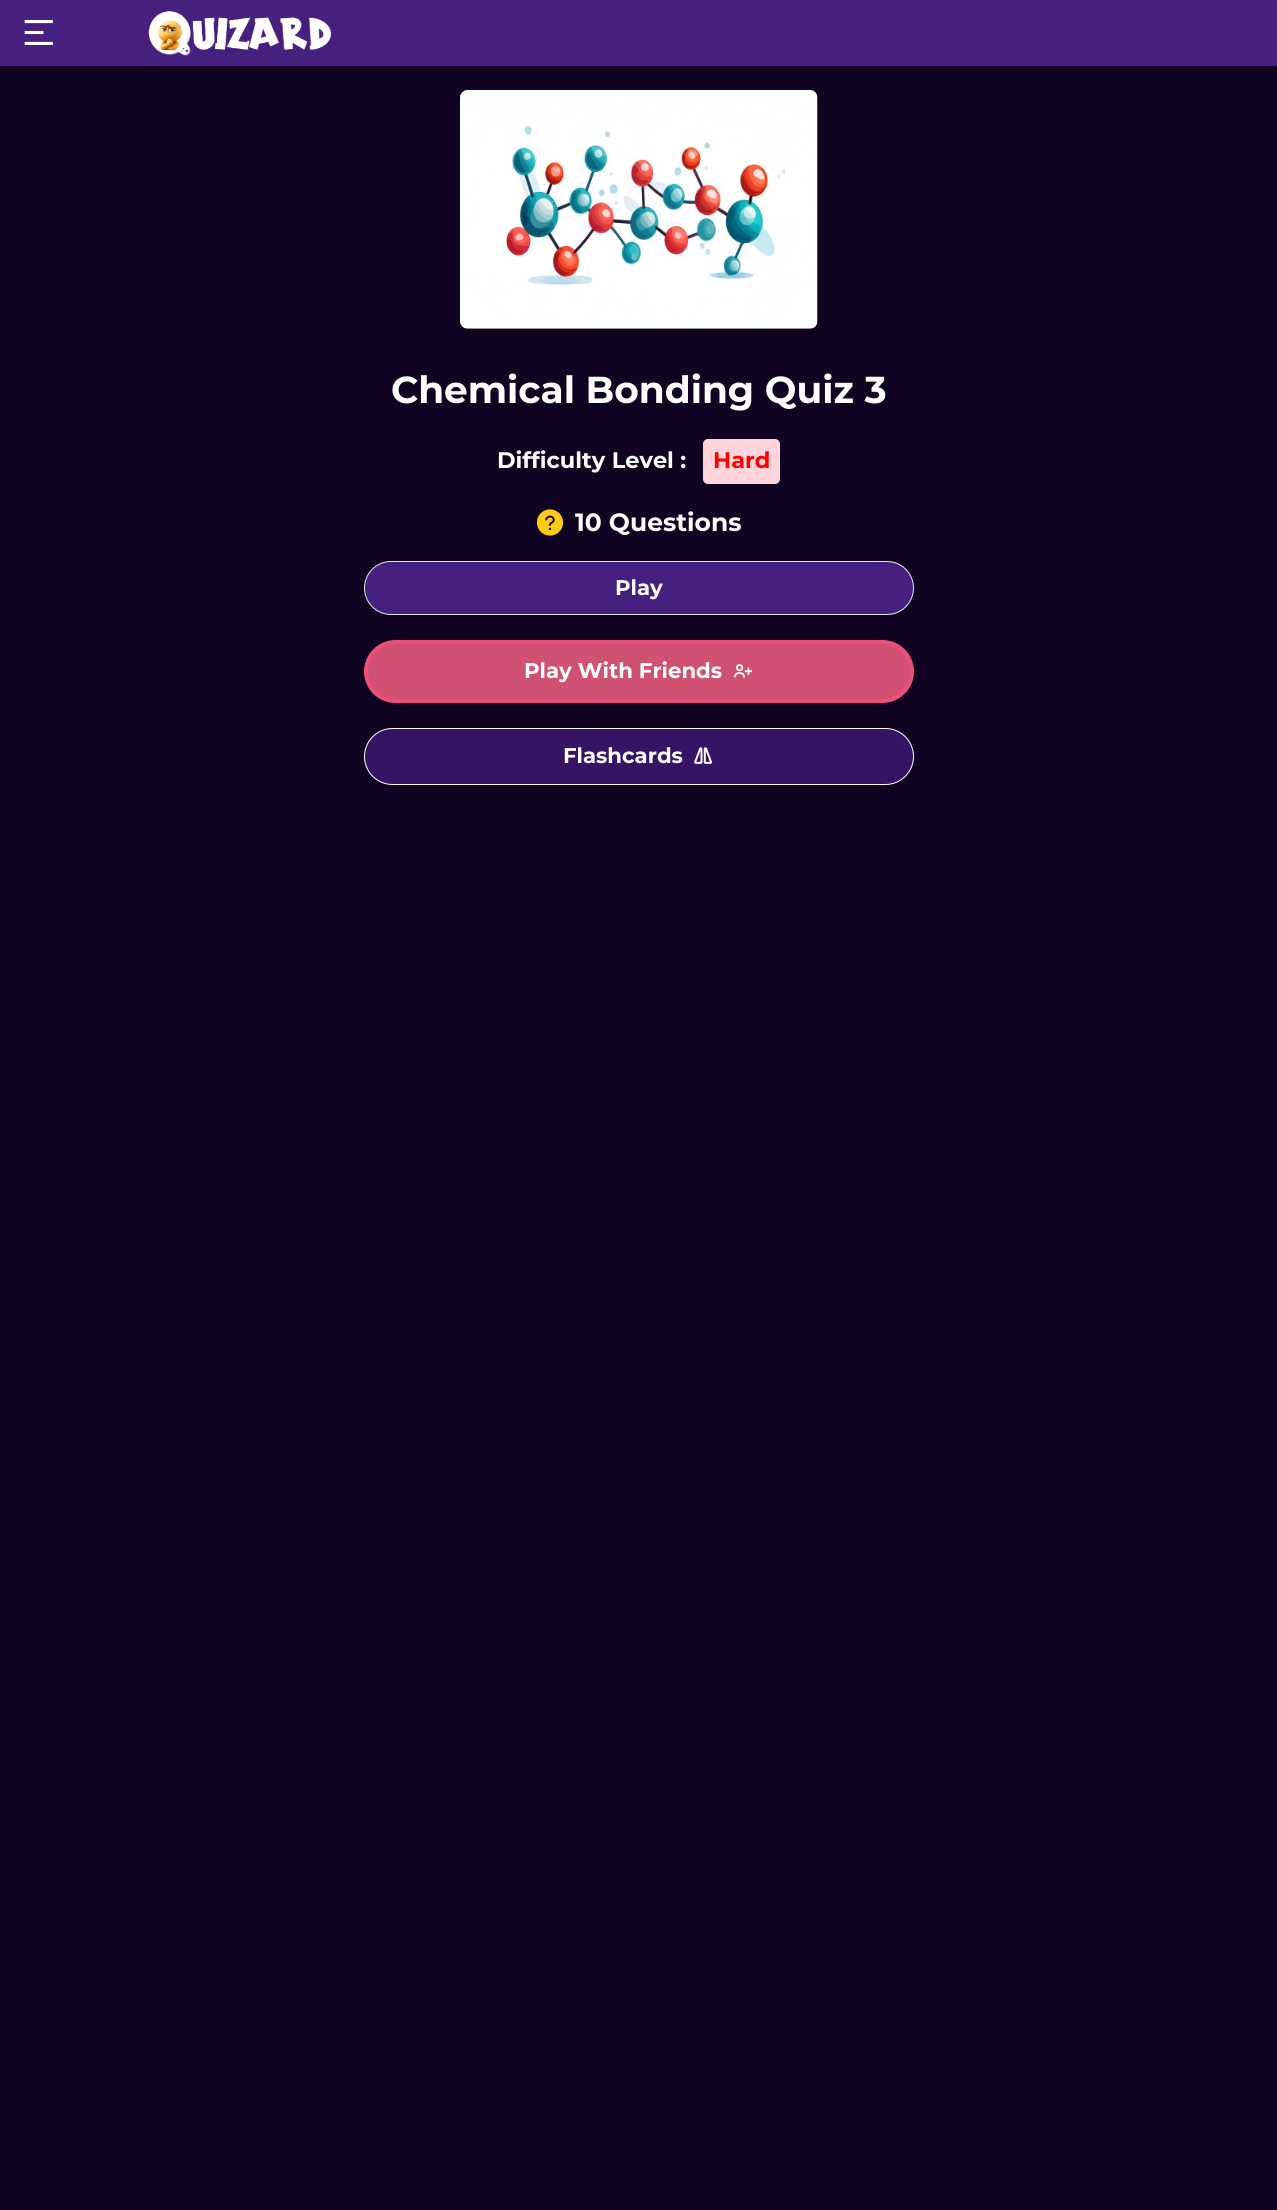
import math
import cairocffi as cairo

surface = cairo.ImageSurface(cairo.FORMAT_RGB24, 1277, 2210)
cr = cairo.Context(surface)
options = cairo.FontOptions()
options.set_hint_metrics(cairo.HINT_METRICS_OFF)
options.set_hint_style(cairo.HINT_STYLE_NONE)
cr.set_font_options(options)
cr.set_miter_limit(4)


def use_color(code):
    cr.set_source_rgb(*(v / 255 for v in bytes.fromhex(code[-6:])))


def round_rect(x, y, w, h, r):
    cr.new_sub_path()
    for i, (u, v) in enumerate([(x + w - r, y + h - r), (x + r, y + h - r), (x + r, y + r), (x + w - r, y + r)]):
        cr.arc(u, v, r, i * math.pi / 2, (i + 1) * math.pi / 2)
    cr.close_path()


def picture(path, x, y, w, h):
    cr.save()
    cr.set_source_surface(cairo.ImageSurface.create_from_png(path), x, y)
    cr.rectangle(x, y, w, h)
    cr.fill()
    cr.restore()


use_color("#100422")
cr.paint()
use_color("#461f7f")
cr.rectangle(0, 0, 1277, 66)
cr.fill()
picture("img1.png", 24, 20, 29, 25)
picture("img2.png", 148, 11, 183, 45)
picture("img3.png", 460, 90, 358, 244)
cr.select_font_face("Montserrat Thin")
cr.set_font_size(37.5)
use_color("#ffffff")
cr.move_to(391, 403)
cr.show_text("Chemical Bonding Quiz 3")
cr.set_font_size(22.5)
cr.move_to(497, 468)
cr.show_text("Difficulty Level :")
use_color("#ffd4db")
round_rect(703, 439, 77, 45, 5)
cr.fill()
use_color("#ff0000")
cr.move_to(713, 468)
cr.show_text("Hard")
picture("img4.png", 536, 509, 28, 27)
cr.set_font_size(25)
use_color("#ffffff")
cr.move_to(575, 531)
cr.show_text("10 Questions")
use_color("#461f7f")
round_rect(364.5, 561.5, 549, 53, 26.5)
cr.fill_preserve()
use_color("#e5e7eb")
cr.set_line_width(1)
cr.stroke()
cr.set_font_size(21.25)
use_color("#ffffff")
cr.move_to(615, 595)
cr.show_text("Play")
use_color("#d15173")
round_rect(366, 642, 546, 59, 29.5)
cr.fill_preserve()
use_color("#ec4f79")
cr.set_line_width(4)
cr.stroke()
use_color("#ffffff")
cr.move_to(524, 678)
cr.show_text("Play With Friends")
picture("img5.png", 734, 664, 18, 14)
use_color("#351466")
round_rect(364.5, 728.5, 549, 56, 28)
cr.fill_preserve()
use_color("#ffffff")
cr.set_line_width(1)
cr.stroke()
cr.move_to(563, 763)
cr.show_text("Flashcards")
picture("img6.png", 694, 747, 19, 17)
surface.write_to_png("result.png")
